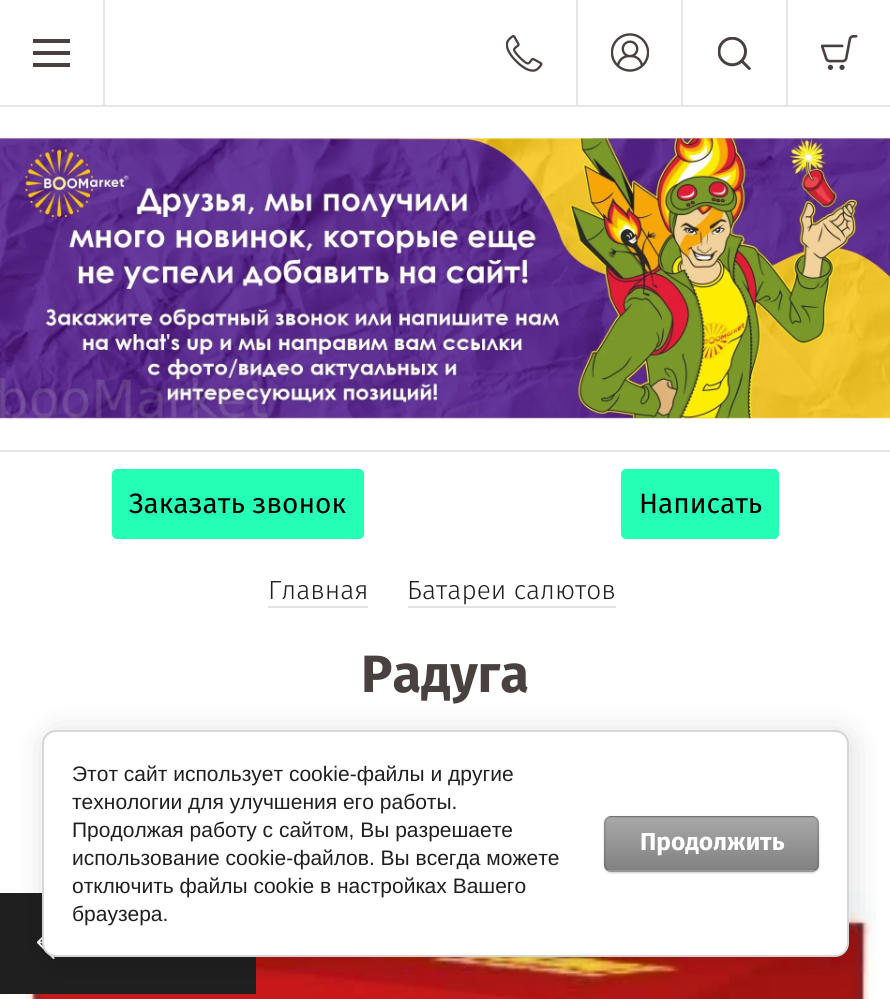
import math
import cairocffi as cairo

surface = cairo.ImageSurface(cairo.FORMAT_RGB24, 890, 999)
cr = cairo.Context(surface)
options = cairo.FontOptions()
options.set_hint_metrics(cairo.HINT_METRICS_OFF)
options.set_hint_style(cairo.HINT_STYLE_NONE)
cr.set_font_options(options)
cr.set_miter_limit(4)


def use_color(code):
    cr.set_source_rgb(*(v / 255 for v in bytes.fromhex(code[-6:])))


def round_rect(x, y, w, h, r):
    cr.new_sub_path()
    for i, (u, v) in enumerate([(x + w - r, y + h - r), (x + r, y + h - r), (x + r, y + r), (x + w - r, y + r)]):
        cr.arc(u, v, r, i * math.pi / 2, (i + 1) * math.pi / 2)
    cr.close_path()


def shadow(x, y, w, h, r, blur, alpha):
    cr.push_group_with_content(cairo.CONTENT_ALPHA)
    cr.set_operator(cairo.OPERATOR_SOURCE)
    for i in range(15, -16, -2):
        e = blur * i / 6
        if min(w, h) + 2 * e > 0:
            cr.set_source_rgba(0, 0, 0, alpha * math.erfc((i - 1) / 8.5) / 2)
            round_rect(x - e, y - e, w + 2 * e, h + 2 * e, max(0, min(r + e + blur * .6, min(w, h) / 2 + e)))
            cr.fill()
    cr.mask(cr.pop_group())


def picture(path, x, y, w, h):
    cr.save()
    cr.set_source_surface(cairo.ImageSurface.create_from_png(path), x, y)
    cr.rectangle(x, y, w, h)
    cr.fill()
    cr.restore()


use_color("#ffffff")
cr.paint()
use_color("#e6e6e6")
cr.new_path()
cr.move_to(0, 105)
cr.line_to(0, 107)
cr.line_to(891, 107)
cr.line_to(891, 2)
cr.line_to(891, 105)
cr.close_path()
cr.fill()
cr.rectangle(103, 0, 2, 105)
cr.fill()
use_color("#48413f")
cr.rectangle(33, 39, 37, 4)
cr.fill()
cr.rectangle(33, 51, 37, 4)
cr.fill()
cr.rectangle(33, 63, 37, 4)
cr.fill()
picture("img1.png", 506, 35, 37, 37)
picture("img2.png", 611, 33, 38, 39)
use_color("#e6e6e6")
cr.rectangle(576, 0, 2, 105)
cr.fill()
picture("img3.png", 718, 37, 33, 33)
cr.rectangle(681, 0, 2, 105)
cr.fill()
cr.rectangle(786, 0, 2, 105)
cr.fill()
picture("img4.png", 821, 35, 37, 35)
cr.rectangle(0, 450, 890, 2)
cr.fill()
picture("img5.png", 0, 138, 890, 281)
use_color("#25ffb5")
round_rect(112, 469, 252, 70, 5)
cr.fill()
cr.select_font_face("Fira Sans")
cr.set_font_size(28)
use_color("#000000")
cr.move_to(129, 513)
cr.show_text("Заказать звонок")
use_color("#25ffb5")
round_rect(621, 469, 158, 70, 5)
cr.fill()
use_color("#000000")
cr.move_to(639, 513)
cr.show_text("Написать")
cr.select_font_face("Fira Sans Light")
cr.set_font_size(26.25)
use_color("#1f1f1f")
cr.move_to(268, 599)
cr.show_text("Главная")
use_color("#e4e3e2")
cr.rectangle(268, 606, 100, 2)
cr.fill()
use_color("#1f1f1f")
cr.move_to(407, 599)
cr.show_text("Батареи салютов")
use_color("#e4e3e2")
cr.rectangle(408, 606, 208, 2)
cr.fill()
cr.select_font_face("Fira Sans", cairo.FONT_SLANT_NORMAL, cairo.FONT_WEIGHT_BOLD)
cr.set_font_size(52.5)
use_color("#48413f")
cr.move_to(361, 692)
cr.show_text("Радуга")
picture("img6.png", 0, 893, 877, 106)
use_color("#1f1f1f")
cr.rectangle(0, 893, 256, 101)
cr.fill()
picture("img7.png", 37, 937, 18, 22)
use_color("#000000")
shadow(46, 733, 806, 228, 14, 16, 0.14)
use_color("#ffffff")
round_rect(43, 731, 805, 225, 13)
cr.fill_preserve()
use_color("#d6d6d6")
cr.stroke()
cr.select_font_face("Liberation Sans")
cr.set_font_size(21)
use_color("#1f1f1f")
cr.move_to(72, 781)
cr.show_text("Этот сайт использует cookie-файлы и другие")
cr.move_to(72, 809)
cr.show_text("технологии для улучшения его работы.")
cr.move_to(72, 837)
cr.show_text("Продолжая работу с сайтом, Вы разрешаете")
cr.move_to(72, 865)
cr.show_text("использование cookie-файлов. Вы всегда можете")
cr.move_to(72, 893)
cr.show_text("отключить файлы cookie в настройках Вашего")
cr.move_to(72, 921)
cr.show_text("браузера.")
use_color("#000000")
shadow(604, 817, 215, 56, 7, 1, 0.2)
cr.save()
round_rect(604, 816, 215, 56, 7)
cr.clip()
gradient = cairo.LinearGradient(711, 765, 711, 817)
gradient.add_color_stop_rgba(0, 0.659, 0.659, 0.659, 1)
gradient.add_color_stop_rgba(1, 0.51, 0.51, 0.51, 1)
cr.set_source(gradient)
cr.rectangle(604, 816, 215, 1)
cr.fill()
gradient = cairo.LinearGradient(711, 817, 711, 870)
gradient.add_color_stop_rgba(0, 0.659, 0.659, 0.659, 1)
gradient.add_color_stop_rgba(1, 0.51, 0.51, 0.51, 1)
cr.set_source(gradient)
cr.rectangle(604, 817, 215, 53)
cr.fill()
gradient = cairo.LinearGradient(711, 870, 711, 922)
gradient.add_color_stop_rgba(0, 0.659, 0.659, 0.659, 1)
gradient.add_color_stop_rgba(1, 0.51, 0.51, 0.51, 1)
cr.set_source(gradient)
cr.rectangle(604, 870, 215, 2)
cr.fill()
cr.restore()
round_rect(605, 817, 213, 54, 6)
cr.set_source_rgba(0, 0, 0, 0.1)
cr.stroke()
cr.select_font_face("Fira Sans", cairo.FONT_SLANT_NORMAL, cairo.FONT_WEIGHT_BOLD)
cr.set_font_size(24.5)
use_color("#ffffff")
cr.move_to(640, 850)
cr.show_text("Продолжить")
surface.write_to_png("result.png")
